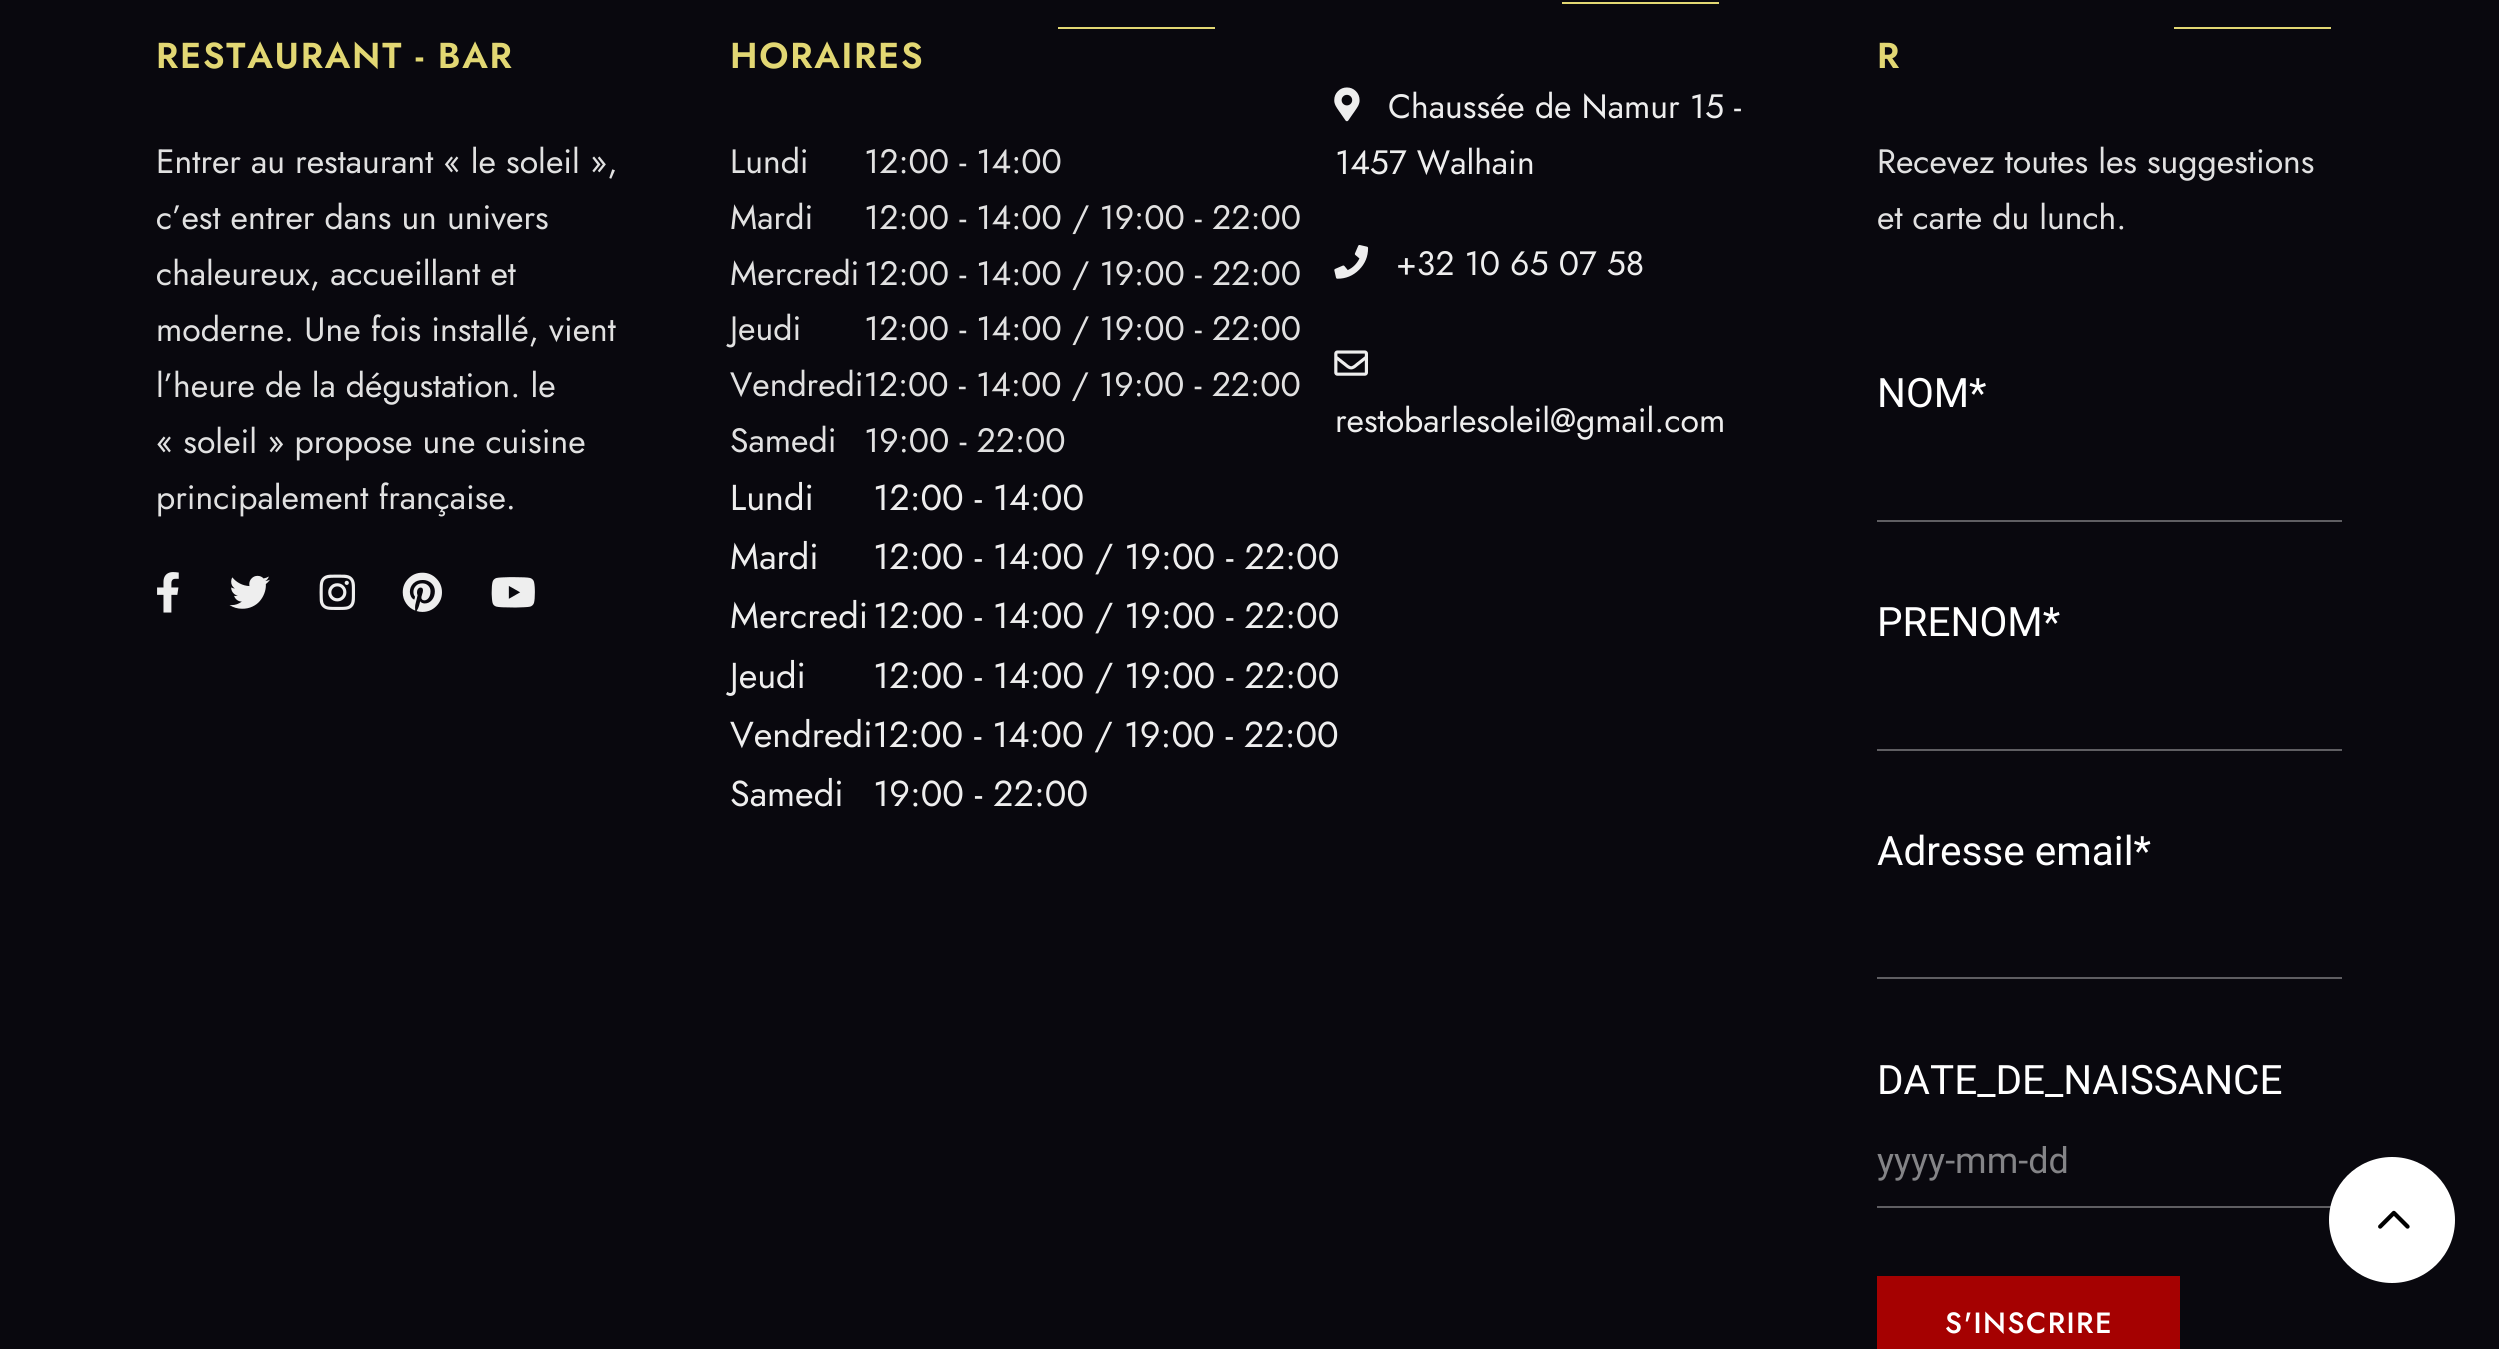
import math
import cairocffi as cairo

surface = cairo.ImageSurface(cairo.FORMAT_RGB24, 2499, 1349)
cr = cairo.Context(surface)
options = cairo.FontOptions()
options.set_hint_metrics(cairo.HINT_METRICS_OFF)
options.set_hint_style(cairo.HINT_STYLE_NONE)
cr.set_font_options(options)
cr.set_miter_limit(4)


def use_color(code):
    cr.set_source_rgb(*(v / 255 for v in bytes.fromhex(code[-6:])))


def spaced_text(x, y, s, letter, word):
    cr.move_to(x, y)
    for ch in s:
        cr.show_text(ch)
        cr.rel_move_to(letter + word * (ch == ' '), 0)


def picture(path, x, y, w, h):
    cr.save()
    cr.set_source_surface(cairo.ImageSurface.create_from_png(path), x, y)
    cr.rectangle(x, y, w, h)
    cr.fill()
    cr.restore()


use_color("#09080e")
cr.paint()
cr.select_font_face("Jost SemiBold")
cr.set_font_size(36)
use_color("#e2d773")
spaced_text(156, 68, "RESTAURANT - BAR", 1.75, 0)
cr.select_font_face("Jost")
cr.set_font_size(33.75)
use_color("#e1e1e1")
cr.move_to(156, 173)
cr.show_text("Entrer au restaurant « le soleil »,")
cr.move_to(156, 229)
cr.show_text("c’est entrer dans un univers")
cr.move_to(156, 285)
cr.show_text("chaleureux, accueillant et")
cr.move_to(156, 341)
cr.show_text("moderne. Une fois installé, vient")
cr.move_to(156, 397)
cr.show_text("l’heure de la dégustation. le")
cr.move_to(156, 453)
cr.show_text("« soleil » propose une cuisine")
cr.move_to(156, 509)
cr.show_text("principalement française.")
picture("img1.png", 157, 572, 22, 41)
picture("img2.png", 229, 575, 41, 34)
picture("img3.png", 319, 574, 36, 36)
picture("img4.png", 402, 572, 40, 40)
picture("img5.png", 491, 577, 44, 31)
use_color("#e2d773")
cr.rectangle(1058, 27, 157, 2)
cr.fill()
cr.select_font_face("Jost SemiBold")
cr.set_font_size(36)
spaced_text(730, 68, "HORAIRES", 1.75, 0)
cr.select_font_face("Jost")
cr.set_font_size(33.75)
use_color("#e1e1e1")
cr.move_to(730, 173)
cr.show_text("Lundi")
cr.move_to(864, 173)
cr.show_text("12:00 - 14:00")
cr.move_to(730, 229)
cr.show_text("Mardi")
cr.move_to(864, 229)
cr.show_text("12:00 - 14:00 / 19:00 - 22:00")
cr.move_to(730, 285)
cr.show_text("Mercredi")
cr.move_to(864, 285)
cr.show_text("12:00 - 14:00 / 19:00 - 22:00")
cr.move_to(730, 340)
cr.show_text("Jeudi")
cr.move_to(864, 340)
cr.show_text("12:00 - 14:00 / 19:00 - 22:00")
cr.move_to(730, 396)
cr.show_text("Vendredi12:00 - 14:00 / 19:00 - 22:00")
cr.move_to(730, 452)
cr.show_text("Samedi")
cr.move_to(864, 452)
cr.show_text("19:00 - 22:00")
cr.set_font_size(36)
use_color("#eeeeee")
cr.move_to(730, 510)
cr.show_text("Lundi")
cr.move_to(873, 510)
cr.show_text("12:00 - 14:00")
cr.move_to(730, 569)
cr.show_text("Mardi")
cr.move_to(873, 569)
cr.show_text("12:00 - 14:00 / 19:00 - 22:00")
cr.move_to(730, 628)
cr.show_text("Mercredi")
cr.move_to(873, 628)
cr.show_text("12:00 - 14:00 / 19:00 - 22:00")
cr.move_to(730, 688)
cr.show_text("Jeudi")
cr.move_to(873, 688)
cr.show_text("12:00 - 14:00 / 19:00 - 22:00")
cr.move_to(730, 747)
cr.show_text("Vendredi12:00 - 14:00 / 19:00 - 22:00")
cr.move_to(730, 806)
cr.show_text("Samedi")
cr.move_to(873, 806)
cr.show_text("19:00 - 22:00")
use_color("#e2d773")
cr.rectangle(1562, 2, 157, 2)
cr.fill()
picture("img6.png", 1334, 87, 26, 35)
cr.set_font_size(33.75)
use_color("#eeeeee")
cr.move_to(1388, 118)
cr.show_text("Chaussée de Namur 15 -")
cr.move_to(1335, 174)
cr.show_text("1457 Walhain")
picture("img7.png", 1334, 245, 35, 34)
cr.move_to(1396, 275)
cr.show_text("+32 10 65 07 58")
picture("img8.png", 1334, 350, 34, 26)
cr.move_to(1335, 432)
cr.show_text("restobarlesoleil@gmail.com")
use_color("#e2d773")
cr.rectangle(2174, 27, 157, 2)
cr.fill()
cr.select_font_face("Jost SemiBold")
cr.set_font_size(36)
spaced_text(1877, 68, "R", 1.75, 0)
cr.select_font_face("Jost")
cr.set_font_size(33.75)
use_color("#e1e1e1")
cr.move_to(1877, 173)
cr.show_text("Recevez toutes les suggestions")
cr.move_to(1877, 229)
cr.show_text("et carte du lunch.")
cr.select_font_face("Roboto")
cr.set_font_size(40.5)
use_color("#ffffff")
cr.move_to(1877, 407)
cr.show_text("NOM*")
use_color("#5f5e62")
cr.rectangle(1877, 520, 465, 2)
cr.fill()
use_color("#ffffff")
cr.move_to(1877, 636)
cr.show_text("PRENOM*")
use_color("#5f5e62")
cr.rectangle(1877, 749, 465, 2)
cr.fill()
use_color("#ffffff")
cr.move_to(1877, 865)
cr.show_text("Adresse email*")
use_color("#5f5e62")
cr.rectangle(1877, 977, 465, 2)
cr.fill()
use_color("#ffffff")
cr.move_to(1877, 1094)
cr.show_text("DATE_DE_NAISSANCE")
use_color("#5f5e62")
cr.rectangle(1877, 1206, 454, 2)
cr.fill()
cr.set_font_size(36)
use_color("#848487")
cr.move_to(1877, 1173)
cr.show_text("yyyy-mm-dd")
use_color("#a50101")
cr.rectangle(1877, 1276, 303, 73)
cr.fill()
cr.select_font_face("Jost Medium")
cr.set_font_size(29.25)
use_color("#ffffff")
spaced_text(1945, 1333, "S'INSCRIRE", 1.5, 0)
cr.new_path()
cr.arc(2392, 1220, 63, 0, 2 * math.pi)
cr.fill()
picture("img9.png", 2378, 1210, 32, 19)
surface.write_to_png("result.png")
